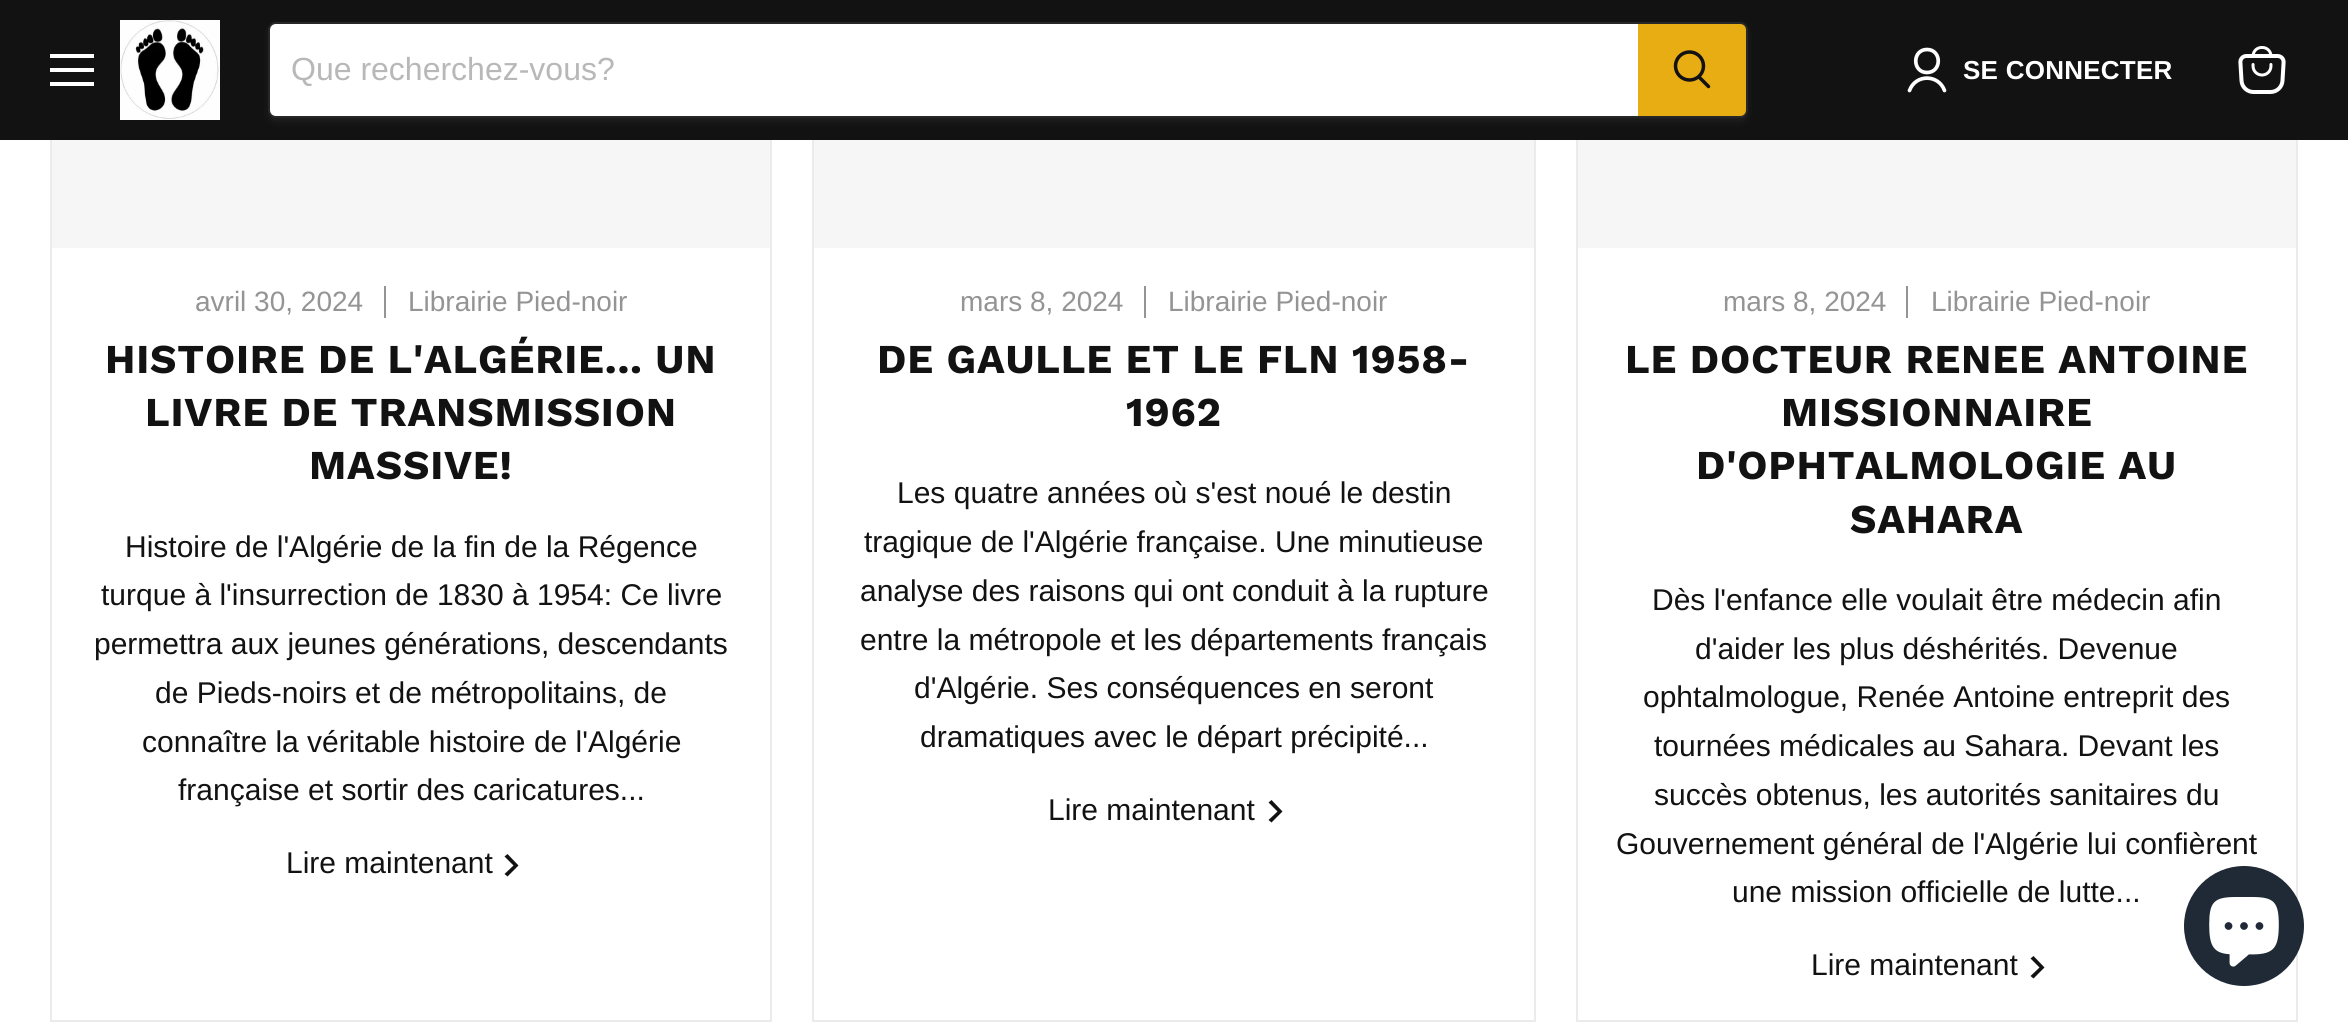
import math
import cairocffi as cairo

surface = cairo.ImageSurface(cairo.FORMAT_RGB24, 2348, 1028)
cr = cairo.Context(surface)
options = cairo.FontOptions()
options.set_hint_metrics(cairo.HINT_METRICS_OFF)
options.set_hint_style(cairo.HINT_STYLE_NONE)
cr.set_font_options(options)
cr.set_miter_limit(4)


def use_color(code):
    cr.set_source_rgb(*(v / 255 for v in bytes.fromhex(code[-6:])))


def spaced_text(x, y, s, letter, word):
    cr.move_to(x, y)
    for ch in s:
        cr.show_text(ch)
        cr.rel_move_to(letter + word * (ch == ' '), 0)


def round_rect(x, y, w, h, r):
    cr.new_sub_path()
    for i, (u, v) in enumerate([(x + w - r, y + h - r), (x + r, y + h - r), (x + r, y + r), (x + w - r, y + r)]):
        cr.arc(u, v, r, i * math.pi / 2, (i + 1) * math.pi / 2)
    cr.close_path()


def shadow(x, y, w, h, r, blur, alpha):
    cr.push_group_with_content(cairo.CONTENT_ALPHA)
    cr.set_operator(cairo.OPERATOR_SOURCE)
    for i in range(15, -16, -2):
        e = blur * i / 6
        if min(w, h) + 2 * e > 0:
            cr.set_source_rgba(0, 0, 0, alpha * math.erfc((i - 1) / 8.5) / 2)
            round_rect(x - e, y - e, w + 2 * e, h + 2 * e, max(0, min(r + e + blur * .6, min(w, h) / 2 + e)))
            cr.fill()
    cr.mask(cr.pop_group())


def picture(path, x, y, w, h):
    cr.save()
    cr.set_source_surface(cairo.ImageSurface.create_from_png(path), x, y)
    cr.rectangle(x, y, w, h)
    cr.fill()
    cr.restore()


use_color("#ffffff")
cr.paint()
cr.rectangle(51, -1, 720, 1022)
use_color("#ebebeb")
cr.stroke()
cr.rectangle(813, -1, 722, 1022)
cr.stroke()
cr.rectangle(1577, -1, 720, 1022)
cr.stroke()
use_color("#121212")
cr.rectangle(0, 0, 2348, 140)
cr.fill()
use_color("#ffffff")
cr.rectangle(50, 54, 44, 4)
cr.fill()
cr.rectangle(50, 68, 44, 4)
cr.fill()
cr.rectangle(50, 82, 44, 4)
cr.fill()
picture("img1.png", 120, 20, 100, 100)
cr.save()
cr.set_fill_rule(cairo.FILL_RULE_EVEN_ODD)
cr.new_path()
cr.move_to(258, 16)
cr.line_to(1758, 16)
cr.line_to(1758, 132)
cr.line_to(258, 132)
cr.close_path()
cr.move_to(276, 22)
cr.line_to(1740, 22)
cr.curve_to(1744.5, 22, 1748, 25.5, 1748, 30)
cr.line_to(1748, 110)
cr.curve_to(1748, 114.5, 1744.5, 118, 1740, 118)
cr.line_to(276, 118)
cr.curve_to(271.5, 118, 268, 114.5, 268, 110)
cr.line_to(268, 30)
cr.curve_to(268, 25.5, 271.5, 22, 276, 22)
cr.close_path()
cr.clip()
use_color("#808080")
shadow(268, 26, 1480, 96, 8, 3, 0.11)
cr.restore()
round_rect(269, 23, 1478, 94, 7)
cr.set_source_rgba(0.502, 0.502, 0.502, 0.2)
cr.stroke()
use_color("#ffffff")
cr.new_path()
cr.move_to(276, 24)
cr.line_to(1638, 24)
cr.line_to(1638, 116)
cr.line_to(276, 116)
cr.curve_to(272.5, 116, 270, 113.5, 270, 110)
cr.line_to(270, 30)
cr.curve_to(270, 26.5, 272.5, 24, 276, 24)
cr.close_path()
cr.fill()
cr.select_font_face("Liberation Sans")
cr.set_font_size(32)
use_color("#b8b8b8")
cr.move_to(291, 80)
cr.show_text("Que recherchez-vous?")
use_color("#e9ad14")
cr.new_path()
cr.move_to(1639, 25)
cr.line_to(1740, 25)
cr.curve_to(1743, 25, 1745, 27, 1745, 30)
cr.line_to(1745, 110)
cr.curve_to(1745, 113, 1743, 115, 1740, 115)
cr.line_to(1639, 115)
cr.close_path()
cr.fill_preserve()
cr.stroke()
cr.new_path()
cr.move_to(1708.5, 86.5)
cr.line_to(1699, 77)
use_color("#121212")
cr.set_line_width(3.5)
cr.set_line_cap(cairo.LINE_CAP_ROUND)
cr.stroke()
cr.arc(1689.5, 66, 14, 0, 2 * math.pi)
cr.set_line_cap(cairo.LINE_CAP_BUTT)
cr.stroke()
cr.new_path()
cr.move_to(1927, 72.5)
cr.curve_to(1942, 72.5, 1942, 49.5, 1927, 49.5)
cr.curve_to(1912, 49.5, 1912, 72.5, 1927, 72.5)
cr.close_path()
cr.move_to(1944.5, 90.5)
cr.curve_to(1938.5, 74, 1915.5, 74, 1909.5, 90.5)
use_color("#ffffff")
cr.set_line_width(3.7)
cr.set_line_cap(cairo.LINE_CAP_ROUND)
cr.set_line_join(cairo.LINE_JOIN_ROUND)
cr.stroke()
cr.select_font_face("Liberation Sans", cairo.FONT_SLANT_NORMAL, cairo.FONT_WEIGHT_BOLD)
cr.set_font_size(26)
spaced_text(1963, 79, "SE CONNECTER", 0.25, 0)
picture("img2.png", 2238, 46, 48, 48)
use_color("#f6f6f6")
cr.rectangle(52, 140, 718, 108)
cr.fill()
cr.select_font_face("Liberation Sans")
cr.set_font_size(28)
use_color("#949494")
cr.move_to(195, 311)
cr.show_text("avril 30, 2024")
cr.rectangle(384, 286, 2, 32)
cr.fill()
cr.move_to(408, 311)
cr.show_text("Librairie Pied-noir")
cr.select_font_face("Work Sans", cairo.FONT_SLANT_NORMAL, cairo.FONT_WEIGHT_BOLD)
cr.set_font_size(41)
use_color("#121212")
spaced_text(105, 373, "HISTOIRE DE L'ALGÉRIE... UN", 0.8, 0)
spaced_text(145, 426, "LIVRE DE TRANSMISSION", 0.8, 0)
spaced_text(309, 479, "MASSIVE!", 0.8, 0)
cr.select_font_face("Liberation Sans")
cr.set_font_size(30)
cr.move_to(125, 557)
cr.show_text("Histoire de l'Algérie de la fin de la Régence")
cr.move_to(101, 605)
cr.show_text("turque à l'insurrection de 1830 à 1954: Ce livre")
cr.move_to(94, 654)
cr.show_text("permettra aux jeunes générations, descendants")
cr.move_to(155, 703)
cr.show_text("de Pieds-noirs et de métropolitains, de")
cr.move_to(142, 752)
cr.show_text("connaître la véritable histoire de l'Algérie")
cr.move_to(178, 800)
cr.show_text("française et sortir des caricatures...")
cr.move_to(286, 873)
cr.show_text("Lire maintenant")
cr.set_fill_rule(cairo.FILL_RULE_EVEN_ODD)
cr.new_path()
cr.move_to(513.5, 865.5)
cr.line_to(504.5, 856.5)
cr.line_to(507.5, 854)
cr.line_to(518.5, 865.5)
cr.line_to(507.5, 876.5)
cr.line_to(504.5, 874)
cr.close_path()
cr.fill()
use_color("#f6f6f6")
cr.rectangle(814, 140, 720, 108)
cr.fill()
cr.set_font_size(28)
use_color("#949494")
cr.move_to(960, 311)
cr.show_text("mars 8, 2024")
cr.rectangle(1144, 286, 2, 32)
cr.fill()
cr.move_to(1168, 311)
cr.show_text("Librairie Pied-noir")
cr.select_font_face("Work Sans", cairo.FONT_SLANT_NORMAL, cairo.FONT_WEIGHT_BOLD)
cr.set_font_size(41)
use_color("#121212")
spaced_text(877, 373, "DE GAULLE ET LE FLN 1958-", 0.8, 0)
spaced_text(1126, 426, "1962", 0.8, 0)
cr.select_font_face("Liberation Sans")
cr.set_font_size(30)
cr.move_to(897, 503)
cr.show_text("Les quatre années où s'est noué le destin")
cr.move_to(864, 552)
cr.show_text("tragique de l'Algérie française. Une minutieuse")
cr.move_to(860, 601)
cr.show_text("analyse des raisons qui ont conduit à la rupture")
cr.move_to(860, 650)
cr.show_text("entre la métropole et les départements français")
cr.move_to(914, 698)
cr.show_text("d'Algérie. Ses conséquences en seront")
cr.move_to(920, 747)
cr.show_text("dramatiques avec le départ précipité...")
cr.move_to(1048, 820)
cr.show_text("Lire maintenant")
cr.new_path()
cr.move_to(1277.5, 811.5)
cr.line_to(1268.5, 802.5)
cr.line_to(1271.5, 800)
cr.line_to(1282.5, 811.5)
cr.line_to(1271.5, 822.5)
cr.line_to(1268.5, 820)
cr.close_path()
cr.fill()
use_color("#f6f6f6")
cr.rectangle(1578, 140, 718, 108)
cr.fill()
cr.set_font_size(28)
use_color("#949494")
cr.move_to(1723, 311)
cr.show_text("mars 8, 2024")
cr.rectangle(1906, 286, 2, 32)
cr.fill()
cr.move_to(1931, 311)
cr.show_text("Librairie Pied-noir")
cr.select_font_face("Work Sans", cairo.FONT_SLANT_NORMAL, cairo.FONT_WEIGHT_BOLD)
cr.set_font_size(41)
use_color("#121212")
spaced_text(1625, 373, "LE DOCTEUR RENEE ANTOINE", 0.8, 0)
spaced_text(1781, 426, "MISSIONNAIRE", 0.8, 0)
spaced_text(1696, 479, "D'OPHTALMOLOGIE AU", 0.8, 0)
spaced_text(1850, 533, "SAHARA", 0.8, 0)
cr.select_font_face("Liberation Sans")
cr.set_font_size(30)
cr.move_to(1652, 610)
cr.show_text("Dès l'enfance elle voulait être médecin afin")
cr.move_to(1695, 659)
cr.show_text("d'aider les plus déshérités. Devenue")
cr.move_to(1643, 707)
cr.show_text("ophtalmologue, Renée Antoine entreprit des")
cr.move_to(1654, 756)
cr.show_text("tournées médicales au Sahara. Devant les")
cr.move_to(1654, 805)
cr.show_text("succès obtenus, les autorités sanitaires du")
cr.move_to(1616, 854)
cr.show_text("Gouvernement général de l'Algérie lui confièrent")
cr.move_to(1732, 902)
cr.show_text("une mission officielle de lutte...")
cr.move_to(1811, 975)
cr.show_text("Lire maintenant")
cr.new_path()
cr.move_to(2039.5, 967.5)
cr.line_to(2030.5, 958.5)
cr.line_to(2033.5, 956)
cr.line_to(2044.5, 967.5)
cr.line_to(2033.5, 978.5)
cr.line_to(2030.5, 976)
cr.close_path()
cr.fill()
use_color("#202a36")
cr.arc(2244, 926, 60, 0, 2 * math.pi)
cr.fill()
picture("img3.png", 2209, 897, 70, 70)
surface.write_to_png("result.png")
